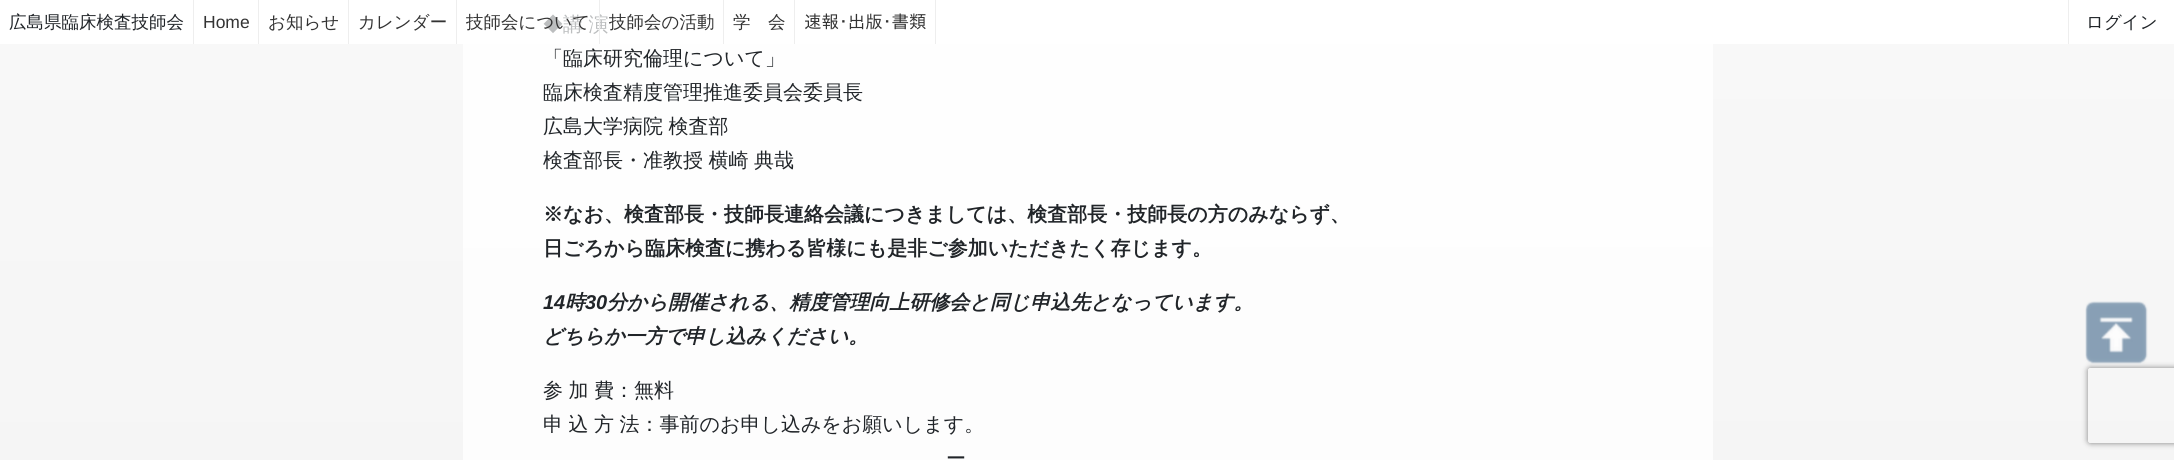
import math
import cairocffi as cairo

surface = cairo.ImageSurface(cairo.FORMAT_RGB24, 2174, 460)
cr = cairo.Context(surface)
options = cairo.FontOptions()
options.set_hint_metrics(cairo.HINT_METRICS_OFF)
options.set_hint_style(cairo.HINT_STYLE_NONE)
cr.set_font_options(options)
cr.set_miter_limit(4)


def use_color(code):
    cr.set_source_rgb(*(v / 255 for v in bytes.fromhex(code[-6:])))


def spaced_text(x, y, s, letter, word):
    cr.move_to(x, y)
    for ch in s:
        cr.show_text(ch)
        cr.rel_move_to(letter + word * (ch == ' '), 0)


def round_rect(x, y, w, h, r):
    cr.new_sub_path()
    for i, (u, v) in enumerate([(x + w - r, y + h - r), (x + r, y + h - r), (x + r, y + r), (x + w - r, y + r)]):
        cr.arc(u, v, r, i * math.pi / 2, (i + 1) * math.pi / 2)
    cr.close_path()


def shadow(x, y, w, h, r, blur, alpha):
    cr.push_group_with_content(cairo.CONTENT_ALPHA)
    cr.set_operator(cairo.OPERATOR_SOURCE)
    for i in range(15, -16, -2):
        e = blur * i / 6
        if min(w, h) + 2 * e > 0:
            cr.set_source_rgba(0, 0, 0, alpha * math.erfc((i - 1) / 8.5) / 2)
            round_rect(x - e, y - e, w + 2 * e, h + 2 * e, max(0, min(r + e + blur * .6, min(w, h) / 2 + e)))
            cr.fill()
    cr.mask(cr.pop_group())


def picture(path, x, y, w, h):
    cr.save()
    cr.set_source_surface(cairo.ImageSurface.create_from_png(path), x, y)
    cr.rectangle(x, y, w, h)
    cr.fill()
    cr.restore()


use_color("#ffffff")
cr.paint()
gradient = cairo.LinearGradient(1087, -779, 1088, 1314)
gradient.add_color_stop_rgba(0, 0.992, 0.992, 0.992, 1)
gradient.add_color_stop_rgba(1, 0.941, 0.941, 0.941, 1)
cr.set_source(gradient)
cr.rectangle(0, 44, 2174, 416)
cr.fill()
gradient = cairo.LinearGradient(1087, -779, 1088, 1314)
gradient.add_color_stop_rgba(0, 1, 1, 1, 1)
gradient.add_color_stop_rgba(1, 0.988, 0.988, 0.988, 1)
cr.set_source(gradient)
cr.rectangle(463, 44, 1250, 416)
cr.fill()
cr.select_font_face("WenQuanYi Zen Hei Medium")
cr.set_font_size(17.5)
use_color("#212529")
cr.move_to(9, 28)
cr.show_text("広島県臨床検査技師会")
use_color("#eeeeee")
cr.rectangle(193, 0, 1, 44)
cr.fill()
cr.select_font_face("Liberation Sans")
use_color("#333333")
cr.move_to(203, 28)
cr.show_text("Home")
use_color("#eeeeee")
cr.rectangle(258, 0, 1, 44)
cr.fill()
cr.select_font_face("WenQuanYi Zen Hei Medium")
use_color("#333333")
cr.move_to(268, 28)
cr.show_text("お知らせ")
use_color("#eeeeee")
cr.rectangle(348, 0, 1, 44)
cr.fill()
use_color("#333333")
cr.move_to(358, 28)
cr.show_text("カレンダー")
use_color("#eeeeee")
cr.rectangle(456, 0, 1, 44)
cr.fill()
cr.set_font_size(20)
use_color("#bcbebf")
spaced_text(543, 31, "◆講 演", 0, -0.5)
cr.set_font_size(17.5)
use_color("#333333")
cr.move_to(466, 28)
cr.show_text("技師会について")
use_color("#eeeeee")
cr.rectangle(599, 0, 1, 44)
cr.fill()
use_color("#333333")
cr.move_to(609, 28)
cr.show_text("技師会の活動")
use_color("#eeeeee")
cr.rectangle(723, 0, 1, 44)
cr.fill()
use_color("#333333")
cr.move_to(733, 28)
cr.show_text("学　会")
use_color("#eeeeee")
cr.rectangle(935, 0, 1, 44)
cr.fill()
cr.rectangle(794, 0, 1, 44)
cr.fill()
cr.select_font_face("IPAGothic")
use_color("#333333")
cr.move_to(804, 28)
cr.show_text("速報･出版･書類")
use_color("#eeeeee")
cr.rectangle(2068, 0, 1, 44)
cr.fill()
cr.select_font_face("WenQuanYi Zen Hei Medium")
use_color("#212529")
cr.move_to(2086, 28)
cr.show_text("ログイン")
cr.set_font_size(20)
cr.move_to(543, 65)
cr.show_text("「臨床研究倫理について」")
cr.move_to(543, 99)
cr.show_text("臨床検査精度管理推進委員会委員長")
spaced_text(543, 133, "広島大学病院 検査部", 0, -0.5)
spaced_text(543, 167, "検査部長・准教授 横崎 典哉", 0, -0.5)
cr.select_font_face("WenQuanYi Zen Hei", cairo.FONT_SLANT_NORMAL, cairo.FONT_WEIGHT_BOLD)
cr.move_to(543, 221)
cr.show_text("※なお、検査部長・技師長連絡会議につきましては、検査部長・技師長の方のみならず、")
cr.move_to(543, 255)
cr.show_text("日ごろから臨床検査に携わる皆様にも是非ご参加いただきたく存じます。")
cr.select_font_face("Liberation Sans", cairo.FONT_SLANT_ITALIC, cairo.FONT_WEIGHT_BOLD)
cr.move_to(543, 309)
cr.show_text("14")
cr.select_font_face("WenQuanYi Zen Hei", cairo.FONT_SLANT_ITALIC, cairo.FONT_WEIGHT_BOLD)
cr.move_to(565, 309)
cr.show_text("時")
cr.select_font_face("Liberation Sans", cairo.FONT_SLANT_ITALIC, cairo.FONT_WEIGHT_BOLD)
cr.move_to(585, 309)
cr.show_text("30")
cr.select_font_face("WenQuanYi Zen Hei", cairo.FONT_SLANT_ITALIC, cairo.FONT_WEIGHT_BOLD)
cr.move_to(607, 309)
cr.show_text("分から開催される、精度管理向上研修会と同じ申込先となっています。")
cr.move_to(543, 343)
cr.show_text("どちらか一方で申し込みください。")
cr.select_font_face("WenQuanYi Zen Hei Medium")
spaced_text(543, 397, "参 加 費：無料", 0, -0.5)
spaced_text(543, 431, "申 込 方 法：事前のお申し込みをお願いします。", 0, -0.5)
cr.move_to(946, 465)
cr.show_text("ー")
cr.save()
cr.set_fill_rule(cairo.FILL_RULE_EVEN_ODD)
cr.new_path()
cr.move_to(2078, 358)
cr.line_to(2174, 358)
cr.line_to(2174, 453)
cr.line_to(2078, 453)
cr.close_path()
cr.move_to(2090.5, 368)
cr.line_to(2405.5, 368)
cr.curve_to(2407, 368, 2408, 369, 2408, 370.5)
cr.line_to(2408, 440.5)
cr.curve_to(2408, 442, 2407, 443, 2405.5, 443)
cr.line_to(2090.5, 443)
cr.curve_to(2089, 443, 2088, 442, 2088, 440.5)
cr.line_to(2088, 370.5)
cr.curve_to(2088, 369, 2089, 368, 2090.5, 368)
cr.close_path()
cr.clip()
use_color("#808080")
shadow(2088, 368, 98, 75, 2.5, 3, 1)
cr.restore()
picture("img1.png", 2085, 301, 63, 63)
surface.write_to_png("result.png")
